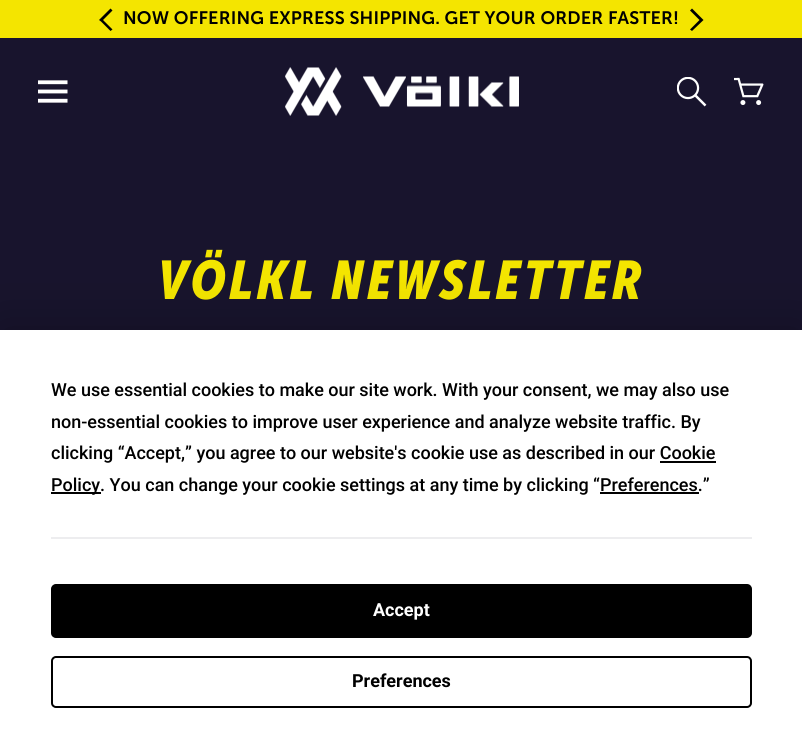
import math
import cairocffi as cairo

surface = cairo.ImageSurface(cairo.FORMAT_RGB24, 802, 752)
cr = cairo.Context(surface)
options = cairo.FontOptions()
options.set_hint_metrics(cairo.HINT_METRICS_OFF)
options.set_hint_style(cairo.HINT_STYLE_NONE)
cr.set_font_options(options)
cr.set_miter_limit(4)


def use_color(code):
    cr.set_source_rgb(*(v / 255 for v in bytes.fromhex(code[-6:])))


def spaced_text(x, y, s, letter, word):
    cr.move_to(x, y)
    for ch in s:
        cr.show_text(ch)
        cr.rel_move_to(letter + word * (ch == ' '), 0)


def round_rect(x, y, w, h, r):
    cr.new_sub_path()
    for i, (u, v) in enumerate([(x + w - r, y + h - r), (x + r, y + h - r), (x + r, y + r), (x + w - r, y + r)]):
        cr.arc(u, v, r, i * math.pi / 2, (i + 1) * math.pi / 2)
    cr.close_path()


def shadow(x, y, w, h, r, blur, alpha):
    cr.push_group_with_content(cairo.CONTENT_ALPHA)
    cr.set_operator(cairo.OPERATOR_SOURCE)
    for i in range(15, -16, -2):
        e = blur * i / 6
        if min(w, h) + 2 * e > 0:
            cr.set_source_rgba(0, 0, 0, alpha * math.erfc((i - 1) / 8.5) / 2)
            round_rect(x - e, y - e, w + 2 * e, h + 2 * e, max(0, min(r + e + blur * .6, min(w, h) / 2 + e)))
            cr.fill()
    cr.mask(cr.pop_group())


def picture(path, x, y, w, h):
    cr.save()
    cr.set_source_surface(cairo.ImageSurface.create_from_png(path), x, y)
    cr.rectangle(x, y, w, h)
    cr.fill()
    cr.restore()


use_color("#18142d")
cr.paint()
use_color("#f4e500")
cr.rectangle(0, 0, 802, 38)
cr.fill()
use_color("#000000")
cr.new_path()
cr.move_to(101, 21.5)
cr.line_to(110.5, 31)
cr.line_to(112.5, 29.5)
cr.line_to(103, 20)
cr.line_to(112.5, 10.5)
cr.line_to(110.5, 8.5)
cr.line_to(99, 20)
cr.close_path()
cr.fill()
cr.select_font_face("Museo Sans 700 SemiBold")
cr.set_font_size(18)
spaced_text(123, 24, "NOW OFFERING EXPRESS SHIPPING. GET YOUR ORDER FASTER!", 0.18, 0)
cr.new_path()
cr.move_to(701.5, 18)
cr.line_to(692, 8.5)
cr.line_to(690, 10.5)
cr.line_to(699.5, 20)
cr.line_to(690, 29.5)
cr.line_to(692, 31)
cr.line_to(703.5, 20)
cr.close_path()
cr.fill()
picture("img1.png", 38, 80, 30, 23)
picture("img2.png", 285, 67, 234, 49)
picture("img3.png", 677, 77, 30, 30)
picture("img4.png", 734, 77, 30, 29)
cr.select_font_face("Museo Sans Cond", cairo.FONT_SLANT_ITALIC, cairo.FONT_WEIGHT_BOLD)
cr.set_font_size(54)
use_color("#f4e500")
spaced_text(158, 299, "VÖLKL NEWSLETTER", 3.6, 0)
use_color("#000000")
shadow(0, 330, 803, 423, 0, 26, 0.25)
use_color("#ffffff")
cr.rectangle(0, 330, 802, 422)
cr.fill()
cr.select_font_face("Roboto Medium")
cr.set_font_size(18)
use_color("#000000")
cr.move_to(51, 396)
cr.show_text("We use essential cookies to make our site work. With your consent, we may also use")
cr.move_to(51, 428)
cr.show_text("non-essential cookies to improve user experience and analyze website traffic. By")
cr.move_to(51, 459)
cr.show_text("clicking “Accept,” you agree to our website's cookie use as described in our Cookie")
cr.rectangle(51, 492, 50, 2)
cr.fill()
cr.move_to(51, 491)
cr.show_text("Policy. You can change your cookie settings at any time by clicking “Preferences.”")
cr.rectangle(660, 461, 56, 2)
cr.fill()
cr.rectangle(600, 492, 99, 2)
cr.fill()
use_color("#ededef")
cr.rectangle(51, 537, 701, 2)
cr.fill()
use_color("#000000")
round_rect(52, 585, 699, 52, 4)
cr.fill_preserve()
cr.stroke()
cr.select_font_face("Roboto", cairo.FONT_SLANT_NORMAL, cairo.FONT_WEIGHT_BOLD)
use_color("#ffffff")
cr.move_to(373, 616)
cr.show_text("Accept")
round_rect(52, 657, 699, 50, 4)
use_color("#000000")
cr.stroke()
cr.move_to(352, 687)
cr.show_text("Preferences")
surface.write_to_png("result.png")
